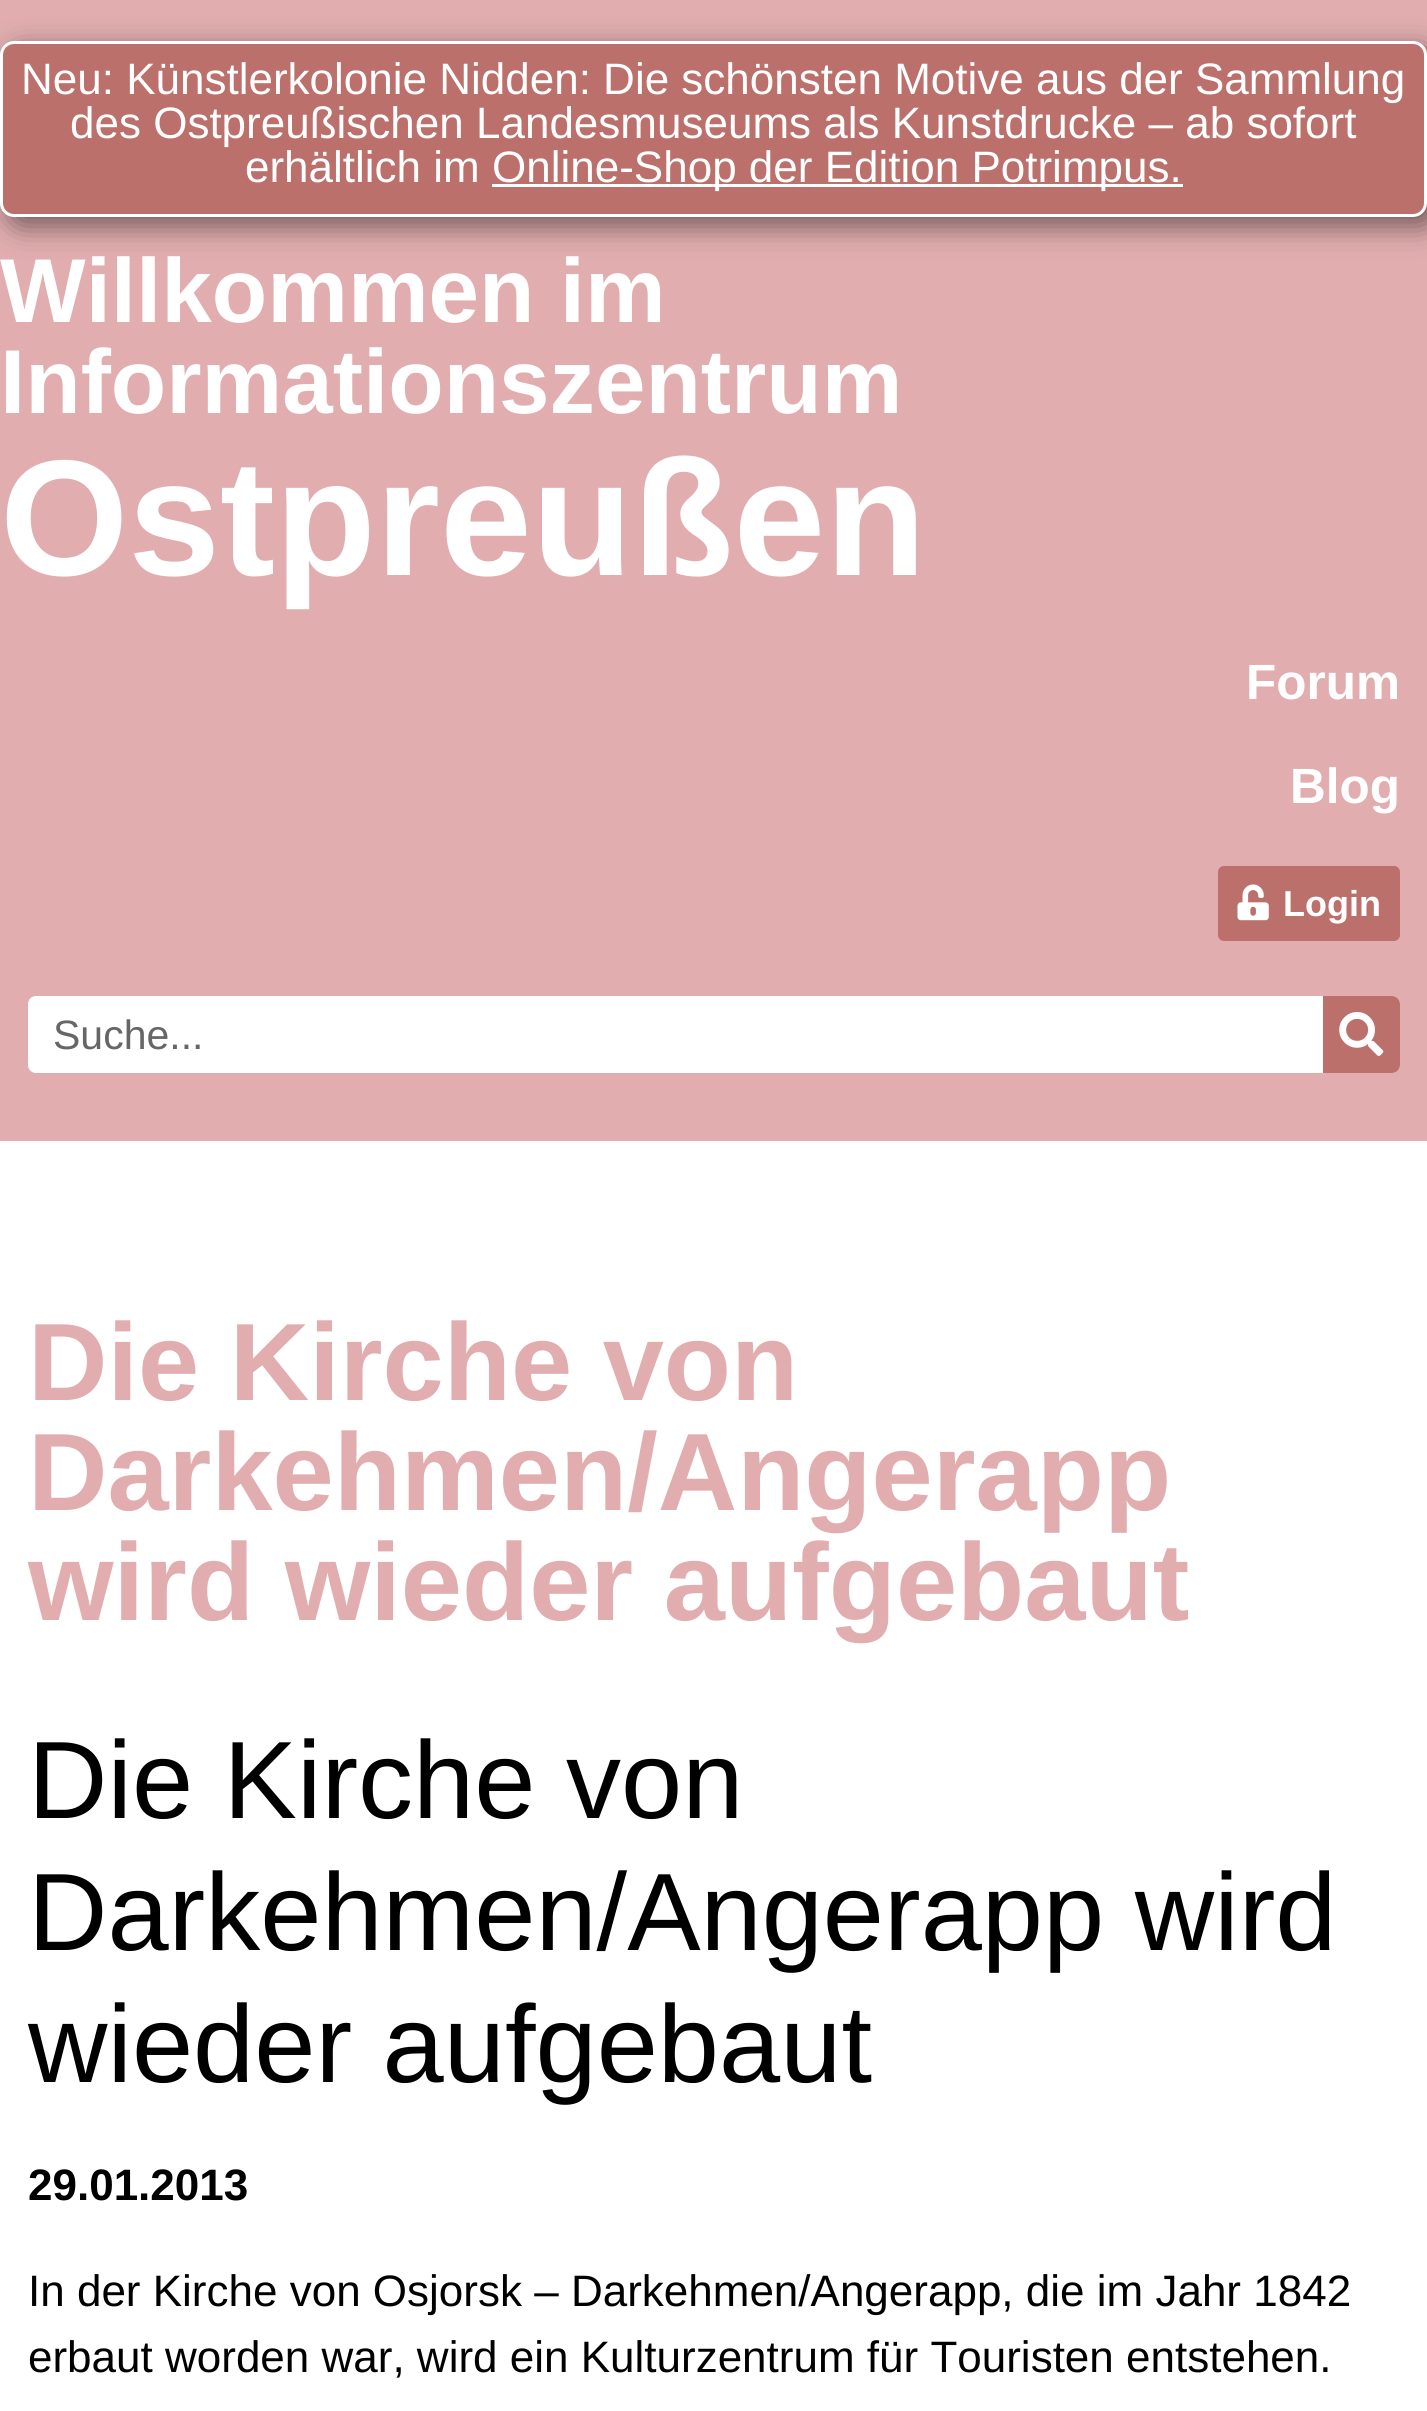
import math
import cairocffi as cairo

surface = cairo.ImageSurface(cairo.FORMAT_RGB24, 1427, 2411)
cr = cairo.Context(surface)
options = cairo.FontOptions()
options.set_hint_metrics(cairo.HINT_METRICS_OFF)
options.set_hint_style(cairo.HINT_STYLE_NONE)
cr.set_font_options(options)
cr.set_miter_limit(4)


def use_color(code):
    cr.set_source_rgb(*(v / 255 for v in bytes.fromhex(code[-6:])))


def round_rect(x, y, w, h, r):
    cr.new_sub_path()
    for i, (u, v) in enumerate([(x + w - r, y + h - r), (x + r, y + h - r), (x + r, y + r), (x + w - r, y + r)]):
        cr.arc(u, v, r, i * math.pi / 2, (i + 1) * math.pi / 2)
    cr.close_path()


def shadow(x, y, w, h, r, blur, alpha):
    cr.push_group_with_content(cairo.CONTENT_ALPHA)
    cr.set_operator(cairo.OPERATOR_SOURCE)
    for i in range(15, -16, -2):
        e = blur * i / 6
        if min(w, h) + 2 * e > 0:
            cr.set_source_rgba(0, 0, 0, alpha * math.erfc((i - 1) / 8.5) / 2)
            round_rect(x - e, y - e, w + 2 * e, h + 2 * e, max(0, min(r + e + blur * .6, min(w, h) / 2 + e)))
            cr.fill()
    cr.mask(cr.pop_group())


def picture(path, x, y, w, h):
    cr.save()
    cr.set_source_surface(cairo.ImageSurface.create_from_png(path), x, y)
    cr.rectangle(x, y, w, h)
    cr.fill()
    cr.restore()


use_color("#ffffff")
cr.paint()
use_color("#e1adaf")
cr.rectangle(0, 0, 1427, 1141)
cr.fill()
use_color("#000000")
shadow(8, 50, 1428, 176, 14, 14, 0.5)
use_color("#bc706c")
round_rect(1.5, 42.5, 1424, 173, 12.5)
cr.fill_preserve()
use_color("#ffffff")
cr.set_line_width(3)
cr.stroke()
cr.select_font_face("Liberation Sans")
cr.set_font_size(44)
cr.move_to(21, 94)
cr.show_text("Neu: Künstlerkolonie Nidden: Die schönsten Motive aus der Sammlung")
cr.move_to(70, 138)
cr.show_text("des Ostpreußischen Landesmuseums als Kunstdrucke – ab sofort")
cr.move_to(245, 182)
cr.show_text("erhältlich im")
cr.rectangle(492, 184, 691, 3)
cr.fill()
cr.move_to(492, 182)
cr.show_text("Online-Shop der Edition Potrimpus.")
cr.select_font_face("Liberation Sans", cairo.FONT_SLANT_NORMAL, cairo.FONT_WEIGHT_BOLD)
cr.set_font_size(90.75)
cr.move_to(0, 322)
cr.show_text("Willkommen im")
cr.move_to(0, 413)
cr.show_text("Informationszentrum")
cr.set_font_size(165)
cr.move_to(0, 575)
cr.show_text("Ostpreußen")
cr.set_font_size(49.5)
cr.move_to(1246, 699)
cr.show_text("Forum")
cr.move_to(1290, 803)
cr.show_text("Blog")
use_color("#bc706c")
round_rect(1218, 866, 182, 75, 6)
cr.fill()
picture("img1.png", 1237, 884, 32, 37)
cr.set_font_size(36)
use_color("#ffffff")
cr.move_to(1283, 916)
cr.show_text("Login")
round_rect(28, 996, 1372, 77, 8)
cr.fill()
cr.select_font_face("Liberation Sans")
cr.set_font_size(41)
use_color("#666666")
cr.move_to(53, 1049)
cr.show_text("Suche...")
use_color("#bc706c")
cr.new_path()
cr.move_to(1323, 996)
cr.line_to(1392, 996)
cr.curve_to(1396.5, 996, 1400, 999.5, 1400, 1004)
cr.line_to(1400, 1065)
cr.curve_to(1400, 1069.5, 1396.5, 1073, 1392, 1073)
cr.line_to(1323, 1073)
cr.close_path()
cr.fill()
picture("img2.png", 1339, 1012, 45, 44)
cr.select_font_face("Liberation Sans", cairo.FONT_SLANT_NORMAL, cairo.FONT_WEIGHT_BOLD)
cr.set_font_size(110)
use_color("#e1adaf")
cr.move_to(28, 1400)
cr.show_text("Die Kirche von")
cr.move_to(28, 1510)
cr.show_text("Darkehmen/Angerapp")
cr.move_to(28, 1620)
cr.show_text("wird wieder aufgebaut")
cr.select_font_face("Liberation Sans")
use_color("#000000")
cr.move_to(28, 1818)
cr.show_text("Die Kirche von")
cr.move_to(28, 1950)
cr.show_text("Darkehmen/Angerapp wird")
cr.move_to(28, 2082)
cr.show_text("wieder aufgebaut")
cr.select_font_face("Liberation Sans", cairo.FONT_SLANT_NORMAL, cairo.FONT_WEIGHT_BOLD)
cr.set_font_size(44)
cr.move_to(28, 2200)
cr.show_text("29.01.2013")
cr.select_font_face("Liberation Sans")
cr.move_to(28, 2306)
cr.show_text("In der Kirche von Osjorsk – Darkehmen/Angerapp, die im Jahr 1842")
cr.move_to(28, 2372)
cr.show_text("erbaut worden war, wird ein Kulturzentrum für Touristen entstehen.")
surface.write_to_png("result.png")
